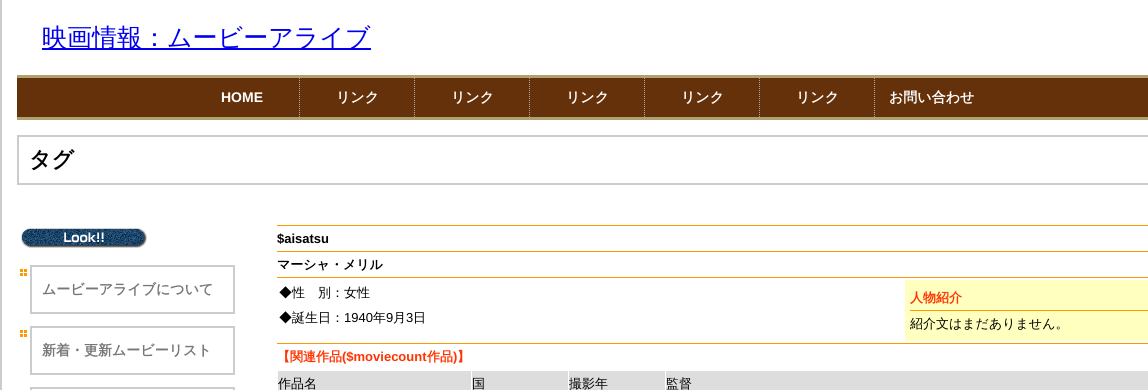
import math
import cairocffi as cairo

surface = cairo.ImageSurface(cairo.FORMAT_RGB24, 1148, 390)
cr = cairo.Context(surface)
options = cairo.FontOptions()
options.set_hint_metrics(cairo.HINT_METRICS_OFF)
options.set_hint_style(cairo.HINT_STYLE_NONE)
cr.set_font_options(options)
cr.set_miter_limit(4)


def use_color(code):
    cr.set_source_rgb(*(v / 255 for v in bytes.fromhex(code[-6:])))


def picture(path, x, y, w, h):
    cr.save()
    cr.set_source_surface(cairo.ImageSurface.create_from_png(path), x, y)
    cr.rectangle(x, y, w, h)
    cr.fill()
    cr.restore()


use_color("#ffffff")
cr.paint()
use_color("#cccccc")
cr.rectangle(0, 0, 2, 390)
cr.fill()
use_color("#0000ee")
cr.rectangle(42, 48, 329, 2)
cr.fill()
cr.select_font_face("WenQuanYi Zen Hei Medium")
cr.set_font_size(25)
cr.move_to(42, 46)
cr.show_text("映画情報：ムービーアライブ")
use_color("#65310a")
cr.rectangle(17, 78, 1131, 39)
cr.fill()
use_color("#b0a170")
cr.rectangle(17, 75, 1131, 3)
cr.fill()
cr.rectangle(17, 117, 1131, 3)
cr.fill()
cr.new_path()
cr.move_to(299.5, 78)
cr.line_to(299.5, 117)
use_color("#aaaaaa")
cr.set_line_width(1)
cr.set_dash([1, 1])
cr.stroke()
cr.select_font_face("Liberation Sans", cairo.FONT_SLANT_NORMAL, cairo.FONT_WEIGHT_BOLD)
cr.set_font_size(14)
use_color("#ffffff")
cr.move_to(221, 102)
cr.show_text("HOME")
cr.new_path()
cr.move_to(414.5, 78)
cr.line_to(414.5, 117)
use_color("#aaaaaa")
cr.stroke()
cr.select_font_face("WenQuanYi Zen Hei", cairo.FONT_SLANT_NORMAL, cairo.FONT_WEIGHT_BOLD)
use_color("#ffffff")
cr.move_to(336, 102)
cr.show_text("リンク")
cr.new_path()
cr.move_to(529.5, 78)
cr.line_to(529.5, 117)
use_color("#aaaaaa")
cr.stroke()
use_color("#ffffff")
cr.move_to(451, 102)
cr.show_text("リンク")
cr.new_path()
cr.move_to(644.5, 78)
cr.line_to(644.5, 117)
use_color("#aaaaaa")
cr.stroke()
use_color("#ffffff")
cr.move_to(566, 102)
cr.show_text("リンク")
cr.new_path()
cr.move_to(759.5, 78)
cr.line_to(759.5, 117)
use_color("#aaaaaa")
cr.stroke()
use_color("#ffffff")
cr.move_to(681, 102)
cr.show_text("リンク")
cr.new_path()
cr.move_to(874.5, 78)
cr.line_to(874.5, 117)
use_color("#aaaaaa")
cr.stroke()
use_color("#ffffff")
cr.move_to(796, 102)
cr.show_text("リンク")
cr.move_to(889, 102)
cr.show_text("お問い合わせ")
cr.rectangle(18, 136, 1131, 48)
use_color("#cccccc")
cr.set_line_width(2)
cr.set_dash([])
cr.stroke()
cr.set_font_size(22)
use_color("#000000")
cr.move_to(29, 167)
cr.show_text("タグ")
picture("img1.png", 21, 228, 126, 20)
picture("img2.png", 20, 269, 7, 7)
cr.rectangle(31, 266, 203, 47)
use_color("#cccccc")
cr.stroke()
cr.set_font_size(14)
use_color("#777777")
cr.move_to(42, 294)
cr.show_text("ムービーアライブについて")
picture("img2.png", 20, 330, 7, 7)
cr.rectangle(31, 327, 203, 47)
use_color("#cccccc")
cr.stroke()
use_color("#777777")
cr.move_to(42, 355)
cr.show_text("新着・更新ムービーリスト")
cr.rectangle(31, 388, 203, 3)
use_color("#cccccc")
cr.stroke()
use_color("#ff9900")
cr.rectangle(277, 225, 871, 1)
cr.fill()
cr.select_font_face("Liberation Sans", cairo.FONT_SLANT_NORMAL, cairo.FONT_WEIGHT_BOLD)
cr.set_font_size(13)
use_color("#000000")
cr.move_to(277, 243)
cr.show_text("$aisatsu")
use_color("#ff9900")
cr.rectangle(277, 251, 871, 1)
cr.fill()
cr.select_font_face("WenQuanYi Zen Hei", cairo.FONT_SLANT_NORMAL, cairo.FONT_WEIGHT_BOLD)
use_color("#000000")
cr.move_to(277, 269)
cr.show_text("マーシャ・メリル")
use_color("#ff9900")
cr.rectangle(277, 277, 871, 1)
cr.fill()
cr.select_font_face("WenQuanYi Zen Hei Medium")
use_color("#000000")
cr.move_to(279, 297)
cr.show_text("◆性　別：女性")
cr.move_to(279, 322)
cr.show_text("◆誕生日：")
cr.select_font_face("Liberation Sans")
cr.move_to(344, 322)
cr.show_text("1940")
cr.select_font_face("WenQuanYi Zen Hei Medium")
cr.move_to(373, 322)
cr.show_text("年")
cr.select_font_face("Liberation Sans")
cr.move_to(386, 322)
cr.show_text("9")
cr.select_font_face("WenQuanYi Zen Hei Medium")
cr.move_to(393, 322)
cr.show_text("月")
cr.select_font_face("Liberation Sans")
cr.move_to(406, 322)
cr.show_text("3")
cr.select_font_face("WenQuanYi Zen Hei Medium")
cr.move_to(413, 322)
cr.show_text("日")
use_color("#ffffbf")
cr.rectangle(905, 280, 243, 61)
cr.fill()
cr.select_font_face("WenQuanYi Zen Hei", cairo.FONT_SLANT_NORMAL, cairo.FONT_WEIGHT_BOLD)
use_color("#ff3300")
cr.move_to(910, 302)
cr.show_text("人物紹介")
use_color("#ff9900")
cr.rectangle(910, 310, 238, 1)
cr.fill()
cr.select_font_face("WenQuanYi Zen Hei Medium")
use_color("#000000")
cr.move_to(910, 328)
cr.show_text("紹介文はまだありません。")
use_color("#ff9900")
cr.rectangle(277, 343, 871, 1)
cr.fill()
cr.select_font_face("WenQuanYi Zen Hei", cairo.FONT_SLANT_NORMAL, cairo.FONT_WEIGHT_BOLD)
use_color("#ff3300")
cr.move_to(277, 361)
cr.show_text("【関連作品")
cr.select_font_face("Liberation Sans", cairo.FONT_SLANT_NORMAL, cairo.FONT_WEIGHT_BOLD)
cr.move_to(342, 361)
cr.show_text("($moviecount")
cr.select_font_face("WenQuanYi Zen Hei", cairo.FONT_SLANT_NORMAL, cairo.FONT_WEIGHT_BOLD)
cr.move_to(427, 361)
cr.show_text("作品")
cr.select_font_face("Liberation Sans", cairo.FONT_SLANT_NORMAL, cairo.FONT_WEIGHT_BOLD)
cr.move_to(453, 361)
cr.show_text(")")
cr.select_font_face("WenQuanYi Zen Hei", cairo.FONT_SLANT_NORMAL, cairo.FONT_WEIGHT_BOLD)
cr.move_to(457, 361)
cr.show_text("】")
use_color("#dddddd")
cr.rectangle(278, 371, 193, 19)
cr.fill()
cr.select_font_face("WenQuanYi Zen Hei Medium")
use_color("#000000")
cr.move_to(278, 388)
cr.show_text("作品名")
use_color("#dddddd")
cr.rectangle(472, 371, 96, 19)
cr.fill()
use_color("#000000")
cr.move_to(472, 388)
cr.show_text("国")
use_color("#dddddd")
cr.rectangle(569, 371, 96, 19)
cr.fill()
use_color("#000000")
cr.move_to(569, 388)
cr.show_text("撮影年")
use_color("#dddddd")
cr.rectangle(666, 371, 482, 19)
cr.fill()
use_color("#000000")
cr.move_to(666, 388)
cr.show_text("監督")
surface.write_to_png("result.png")
